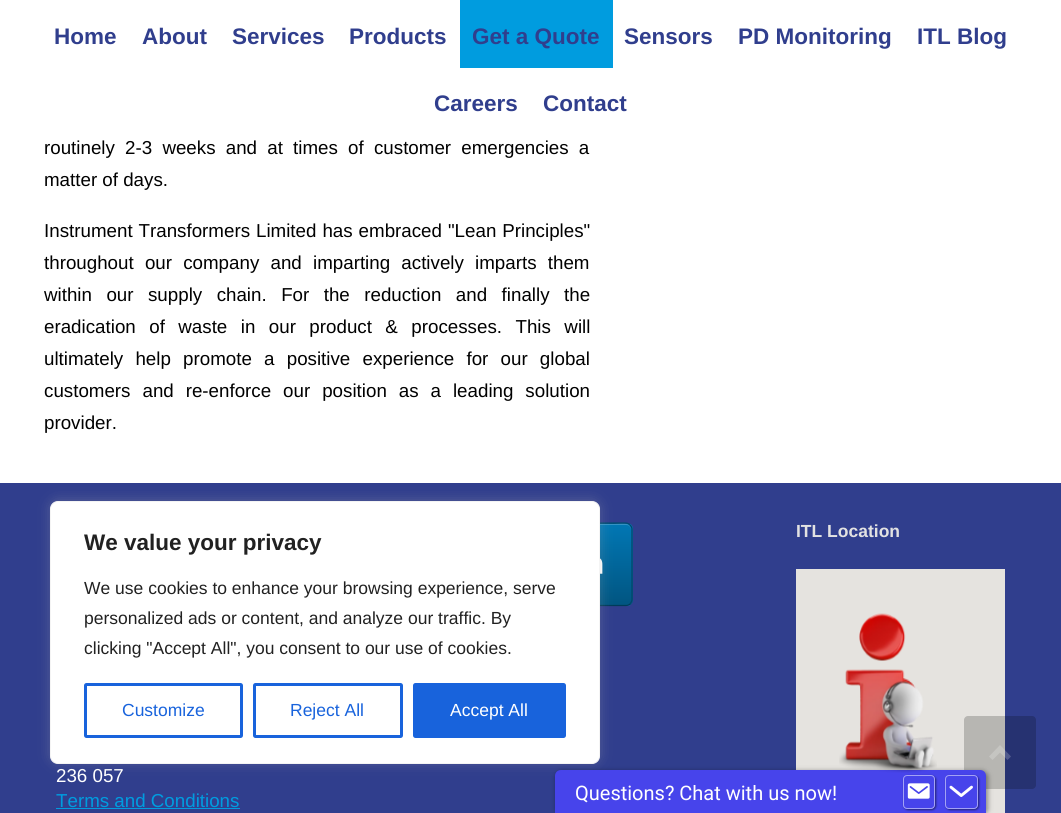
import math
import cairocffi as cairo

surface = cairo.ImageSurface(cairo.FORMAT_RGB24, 1061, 813)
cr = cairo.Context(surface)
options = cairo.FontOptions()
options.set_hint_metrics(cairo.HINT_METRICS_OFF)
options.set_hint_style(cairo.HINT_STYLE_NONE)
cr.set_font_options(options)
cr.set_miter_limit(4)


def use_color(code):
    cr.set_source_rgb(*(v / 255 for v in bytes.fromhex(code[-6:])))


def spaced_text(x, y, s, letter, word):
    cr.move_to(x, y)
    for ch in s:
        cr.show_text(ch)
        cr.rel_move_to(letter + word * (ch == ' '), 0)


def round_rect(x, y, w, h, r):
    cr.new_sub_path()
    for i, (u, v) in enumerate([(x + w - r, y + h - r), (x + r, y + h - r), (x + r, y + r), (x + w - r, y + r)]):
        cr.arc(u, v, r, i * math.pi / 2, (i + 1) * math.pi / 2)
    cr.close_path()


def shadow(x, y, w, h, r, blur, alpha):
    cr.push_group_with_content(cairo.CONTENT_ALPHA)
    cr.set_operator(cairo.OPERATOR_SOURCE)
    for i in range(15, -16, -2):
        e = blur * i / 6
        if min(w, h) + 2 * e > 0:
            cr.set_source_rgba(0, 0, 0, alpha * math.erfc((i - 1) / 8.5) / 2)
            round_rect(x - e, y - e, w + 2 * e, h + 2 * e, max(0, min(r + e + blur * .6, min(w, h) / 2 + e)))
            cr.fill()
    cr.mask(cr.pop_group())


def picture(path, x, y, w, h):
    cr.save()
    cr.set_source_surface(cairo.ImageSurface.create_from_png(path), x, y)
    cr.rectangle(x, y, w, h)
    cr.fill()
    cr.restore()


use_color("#303e8d")
cr.paint()
use_color("#ffffff")
cr.rectangle(0, 0, 1061, 483)
cr.fill()
cr.select_font_face("Liberation Sans", cairo.FONT_SLANT_NORMAL, cairo.FONT_WEIGHT_BOLD)
cr.set_font_size(22.5)
use_color("#303e8d")
cr.move_to(54, 44)
cr.show_text("Home")
cr.move_to(142, 44)
cr.show_text("About")
cr.move_to(232, 44)
cr.show_text("Services")
cr.move_to(349, 44)
cr.show_text("Products")
use_color("#009cdf")
cr.rectangle(460, 0, 153, 68)
cr.fill()
use_color("#303e8d")
cr.move_to(472, 44)
cr.show_text("Get a Quote")
cr.move_to(624, 44)
cr.show_text("Sensors")
cr.move_to(738, 44)
cr.show_text("PD Monitoring")
cr.move_to(917, 44)
cr.show_text("ITL Blog")
cr.move_to(434, 111)
cr.show_text("Careers")
cr.move_to(543, 111)
cr.show_text("Contact")
cr.select_font_face("Liberation Sans")
cr.set_font_size(18.75)
use_color("#000000")
spaced_text(44, 154, "routinely 2-3 weeks and at times of customer emergencies a", 0, 5)
cr.move_to(44, 186)
cr.show_text("matter of days.")
spaced_text(44, 237, "Instrument Transformers Limited has embraced \"Lean Principles\"", 0, 0.75)
spaced_text(44, 269, "throughout our company and imparting actively imparts them", 0, 6)
spaced_text(44, 301, "within our supply chain. For the reduction and finally the", 0, 9.25)
spaced_text(44, 333, "eradication of waste in our product & processes. This will", 0, 8.25)
spaced_text(44, 365, "ultimately help promote a positive experience for our global", 0, 7)
spaced_text(44, 397, "customers and re-enforce our position as a leading solution", 0, 6.75)
cr.move_to(44, 429)
cr.show_text("provider.")
cr.save()
round_rect(550, 523, 83, 83, 6)
cr.clip()
gradient = cairo.LinearGradient(551, 524, 551, 443)
gradient.add_color_stop_rgba(0, 0.004, 0.333, 0.506, 1)
gradient.add_color_stop_rgba(1, 0.004, 0.467, 0.706, 1)
cr.set_source(gradient)
cr.rectangle(600, 523, 33, 1)
cr.fill()
gradient = cairo.LinearGradient(551, 605, 551, 524)
gradient.add_color_stop_rgba(0, 0.004, 0.333, 0.506, 1)
gradient.add_color_stop_rgba(1, 0.004, 0.467, 0.706, 1)
cr.set_source(gradient)
cr.rectangle(600, 524, 33, 81)
cr.fill()
gradient = cairo.LinearGradient(551, 686, 551, 605)
gradient.add_color_stop_rgba(0, 0.004, 0.333, 0.506, 1)
gradient.add_color_stop_rgba(1, 0.004, 0.467, 0.706, 1)
cr.set_source(gradient)
cr.rectangle(627, 605, 6, 1)
cr.fill()
cr.restore()
use_color("#3492c3")
cr.new_path()
cr.move_to(557, 525)
cr.line_to(626, 525)
cr.curve_to(629, 525, 631, 527, 631, 530)
cr.curve_to(631, 521, 620, 524, 614, 524)
cr.line_to(568, 524)
cr.curve_to(562, 524, 551, 521, 551, 530)
cr.curve_to(551, 527, 554, 525, 557, 525)
cr.close_path()
cr.fill()
cr.new_path()
cr.move_to(552.5, 525)
cr.curve_to(553.5, 524, 555, 523, 556.5, 523)
cr.line_to(626, 523)
cr.curve_to(627.5, 523, 629, 524, 630, 525)
use_color("#014b72")
cr.set_line_width(1.2)
cr.stroke()
cr.new_path()
cr.move_to(630, 525)
cr.curve_to(631, 526, 632, 527.5, 632, 529)
cr.line_to(632, 599.5)
cr.curve_to(632, 601, 631, 602.5, 630, 604)
use_color("#014568")
cr.stroke()
cr.new_path()
cr.move_to(630, 604)
cr.curve_to(629, 605, 627.5, 605.5, 626, 605.5)
cr.line_to(556.5, 605.5)
cr.curve_to(555, 605.5, 553.5, 605, 552.5, 604)
use_color("#003b59")
cr.stroke()
picture("img1.png", 600, 558, 3, 16)
cr.select_font_face("Liberation Sans", cairo.FONT_SLANT_NORMAL, cairo.FONT_WEIGHT_BOLD)
cr.set_font_size(17.5)
use_color("#e2e2e2")
cr.move_to(796, 537)
cr.show_text("ITL Location")
use_color("#e5e3df")
cr.rectangle(796, 569, 209, 244)
cr.fill()
picture("img2.png", 902, 678, 15, 13)
cr.select_font_face("Liberation Sans")
cr.set_font_size(18.75)
use_color("#ffffff")
cr.move_to(56, 782)
cr.show_text("236 057")
use_color("#009cdf")
cr.move_to(56, 807)
cr.show_text("Terms and Conditions")
cr.rectangle(56, 808, 184, 1)
cr.fill()
use_color("#acabab")
shadow(50, 500, 550, 263, 8, 6, 0.3)
use_color("#ffffff")
round_rect(50.5, 501.5, 549, 262, 7.5)
cr.fill_preserve()
use_color("#f4f4f4")
cr.set_line_width(1)
cr.stroke()
cr.select_font_face("Liberation Sans", cairo.FONT_SLANT_NORMAL, cairo.FONT_WEIGHT_BOLD)
cr.set_font_size(22.5)
use_color("#212121")
cr.move_to(84, 550)
cr.show_text("We value your privacy")
cr.select_font_face("Liberation Sans")
cr.set_font_size(17.5)
cr.move_to(84, 594)
cr.show_text("We use cookies to enhance your browsing experience, serve")
cr.move_to(84, 624)
cr.show_text("personalized ads or content, and analyze our traffic. By")
cr.move_to(84, 654)
cr.show_text("clicking \"Accept All\", you consent to our use of cookies.")
round_rect(85.5, 684.5, 156, 52, 1)
use_color("#1863dc")
cr.set_line_width(3)
cr.stroke()
cr.move_to(122, 716)
cr.show_text("Customize")
round_rect(254.5, 684.5, 147, 52, 1)
cr.stroke()
cr.move_to(290, 716)
cr.show_text("Reject All")
round_rect(414.5, 684.5, 150, 52, 1)
cr.fill_preserve()
cr.stroke()
use_color("#ffffff")
cr.move_to(450, 716)
cr.show_text("Accept All")
cr.set_source_rgba(0, 0, 0, 0.2)
round_rect(964, 716, 72, 73, 4)
cr.fill()
cr.set_source_rgba(1, 1, 1, 0.2)
cr.new_path()
cr.move_to(1011, 756.5)
cr.line_to(1000, 745)
cr.line_to(989, 756.5)
cr.line_to(992.5, 760)
cr.line_to(1000, 752.5)
cr.line_to(1007.5, 760)
cr.close_path()
cr.fill()
use_color("#000000")
shadow(556, 771, 432, 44, 6, 2.5, 0.4)
use_color("#4744eb")
cr.new_path()
cr.move_to(561, 770)
cr.line_to(980, 770)
cr.curve_to(983.5, 770, 986, 772.5, 986, 776)
cr.line_to(986, 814)
cr.line_to(555, 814)
cr.line_to(555, 776)
cr.curve_to(555, 772.5, 557.5, 770, 561, 770)
cr.close_path()
cr.fill()
cr.save()
cr.set_fill_rule(cairo.FILL_RULE_EVEN_ODD)
cr.new_path()
cr.move_to(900, 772)
cr.line_to(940, 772)
cr.line_to(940, 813)
cr.line_to(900, 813)
cr.close_path()
cr.move_to(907, 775)
cr.line_to(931, 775)
cr.curve_to(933, 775, 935, 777, 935, 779)
cr.line_to(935, 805)
cr.curve_to(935, 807, 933, 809, 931, 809)
cr.line_to(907, 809)
cr.curve_to(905, 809, 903, 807, 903, 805)
cr.line_to(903, 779)
cr.curve_to(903, 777, 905, 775, 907, 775)
cr.close_path()
cr.clip()
use_color("#000000")
shadow(904, 776, 32, 34, 4, 1, 0.5)
cr.restore()
picture("img3.png", 839, 613, 98, 160)
cr.select_font_face("Roboto")
cr.set_font_size(20)
use_color("#ffffff")
cr.move_to(575, 800)
cr.show_text("Questions? Chat with us now!")
round_rect(903.5, 775.5, 31, 33, 3.5)
cr.set_source_rgba(1, 1, 1, 0.5)
cr.set_line_width(1)
cr.stroke()
picture("img4.png", 907, 783, 23, 16)
cr.save()
cr.set_fill_rule(cairo.FILL_RULE_EVEN_ODD)
cr.new_path()
cr.move_to(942, 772)
cr.line_to(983, 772)
cr.line_to(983, 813)
cr.line_to(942, 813)
cr.close_path()
cr.move_to(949, 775)
cr.line_to(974, 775)
cr.curve_to(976, 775, 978, 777, 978, 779)
cr.line_to(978, 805)
cr.curve_to(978, 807, 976, 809, 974, 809)
cr.line_to(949, 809)
cr.curve_to(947, 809, 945, 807, 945, 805)
cr.line_to(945, 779)
cr.curve_to(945, 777, 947, 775, 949, 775)
cr.close_path()
cr.clip()
use_color("#000000")
shadow(946, 776, 33, 34, 4, 1, 0.5)
cr.restore()
round_rect(945.5, 775.5, 32, 33, 3.5)
cr.stroke()
picture("img5.png", 949, 785, 24, 12)
surface.write_to_png("result.png")
